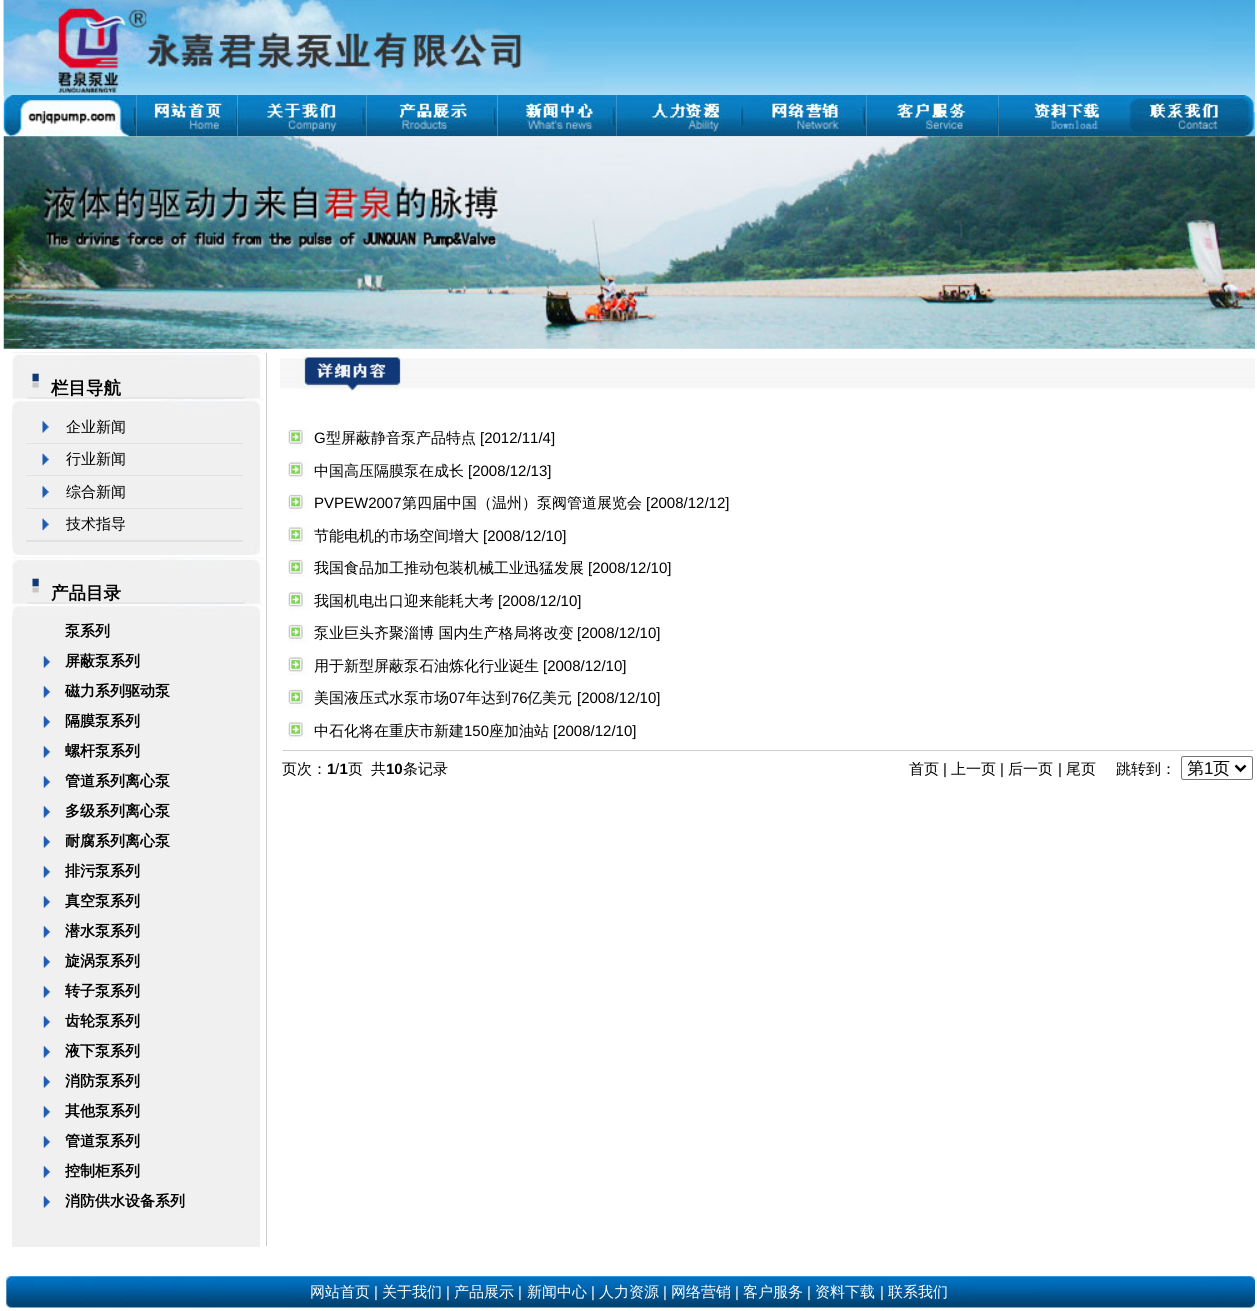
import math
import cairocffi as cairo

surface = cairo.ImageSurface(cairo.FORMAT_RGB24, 1257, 1311)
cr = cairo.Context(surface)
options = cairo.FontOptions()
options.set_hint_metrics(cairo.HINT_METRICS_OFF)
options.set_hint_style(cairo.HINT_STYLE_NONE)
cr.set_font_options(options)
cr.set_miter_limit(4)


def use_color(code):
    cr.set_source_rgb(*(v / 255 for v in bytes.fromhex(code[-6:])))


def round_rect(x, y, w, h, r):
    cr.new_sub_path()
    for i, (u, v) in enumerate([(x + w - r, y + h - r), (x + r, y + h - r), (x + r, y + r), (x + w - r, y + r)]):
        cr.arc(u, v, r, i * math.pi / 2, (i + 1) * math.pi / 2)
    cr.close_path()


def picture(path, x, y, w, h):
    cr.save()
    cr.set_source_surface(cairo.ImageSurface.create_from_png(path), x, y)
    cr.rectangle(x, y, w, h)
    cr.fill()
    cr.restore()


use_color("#ffffff")
cr.paint()
picture("img1.png", 3, 0, 1252, 95)
picture("img2.png", 3, 0, 604, 95)
picture("img3.png", 3, 95, 134, 42)
picture("img4.png", 136, 95, 102, 42)
picture("img5.png", 237, 95, 130, 42)
picture("img6.png", 366, 95, 132, 42)
picture("img7.png", 497, 95, 120, 42)
picture("img8.png", 616, 95, 129, 42)
picture("img9.png", 745, 95, 122, 42)
picture("img10.png", 866, 95, 133, 42)
picture("img11.png", 998, 95, 132, 42)
picture("img12.png", 1130, 95, 125, 42)
picture("img13.png", 3, 136, 1252, 213)
use_color("#f0f0f0")
cr.rectangle(12, 352, 248, 895)
cr.fill()
picture("img14.png", 12, 352, 253, 59)
cr.select_font_face("WenQuanYi Zen Hei", cairo.FONT_SLANT_NORMAL, cairo.FONT_WEIGHT_BOLD)
cr.set_font_size(17.5)
use_color("#000000")
cr.move_to(51, 394)
cr.show_text("栏目导航")
picture("img15.png", 42, 421, 7, 12)
cr.select_font_face("WenQuanYi Zen Hei Medium")
cr.set_font_size(15)
cr.move_to(66, 432)
cr.show_text("企业新闻")
use_color("#e1e1e1")
cr.rectangle(26, 443, 217, 1)
cr.fill()
picture("img16.png", 42, 453, 7, 13)
use_color("#000000")
cr.move_to(66, 464)
cr.show_text("行业新闻")
use_color("#e1e1e1")
cr.rectangle(26, 475, 217, 1)
cr.fill()
picture("img15.png", 42, 486, 7, 12)
use_color("#000000")
cr.move_to(66, 497)
cr.show_text("综合新闻")
use_color("#e1e1e1")
cr.rectangle(26, 508, 217, 1)
cr.fill()
picture("img16.png", 42, 518, 7, 13)
use_color("#000000")
cr.move_to(66, 529)
cr.show_text("技术指导")
use_color("#e1e1e1")
cr.rectangle(26, 540, 217, 2)
cr.fill()
picture("img14.png", 12, 557, 253, 59)
picture("img17.png", 12, 543, 248, 15)
cr.select_font_face("WenQuanYi Zen Hei", cairo.FONT_SLANT_NORMAL, cairo.FONT_WEIGHT_BOLD)
cr.set_font_size(17.5)
use_color("#000000")
cr.move_to(51, 599)
cr.show_text("产品目录")
cr.set_font_size(15)
cr.move_to(65, 636)
cr.show_text("泵系列")
picture("img18.png", 43, 656, 8, 12)
cr.move_to(65, 666)
cr.show_text("屏蔽泵系列")
picture("img18.png", 43, 686, 8, 12)
cr.move_to(65, 696)
cr.show_text("磁力系列驱动泵")
picture("img18.png", 43, 716, 8, 12)
cr.move_to(65, 726)
cr.show_text("隔膜泵系列")
picture("img18.png", 43, 746, 8, 12)
cr.move_to(65, 756)
cr.show_text("螺杆泵系列")
picture("img19.png", 43, 776, 8, 12)
cr.move_to(65, 786)
cr.show_text("管道系列离心泵")
picture("img18.png", 43, 806, 8, 12)
cr.move_to(65, 816)
cr.show_text("多级系列离心泵")
picture("img18.png", 43, 836, 8, 12)
cr.move_to(65, 846)
cr.show_text("耐腐系列离心泵")
picture("img18.png", 43, 866, 8, 12)
cr.move_to(65, 876)
cr.show_text("排污泵系列")
picture("img18.png", 43, 896, 8, 12)
cr.move_to(65, 906)
cr.show_text("真空泵系列")
picture("img18.png", 43, 926, 8, 12)
cr.move_to(65, 936)
cr.show_text("潜水泵系列")
picture("img18.png", 43, 956, 8, 12)
cr.move_to(65, 966)
cr.show_text("旋涡泵系列")
picture("img18.png", 43, 986, 8, 12)
cr.move_to(65, 996)
cr.show_text("转子泵系列")
picture("img18.png", 43, 1016, 8, 12)
cr.move_to(65, 1026)
cr.show_text("齿轮泵系列")
picture("img18.png", 43, 1046, 8, 12)
cr.move_to(65, 1056)
cr.show_text("液下泵系列")
picture("img18.png", 43, 1076, 8, 12)
cr.move_to(65, 1086)
cr.show_text("消防泵系列")
picture("img18.png", 43, 1106, 8, 12)
cr.move_to(65, 1116)
cr.show_text("其他泵系列")
picture("img18.png", 43, 1136, 8, 12)
cr.move_to(65, 1146)
cr.show_text("管道泵系列")
picture("img20.png", 43, 1166, 8, 12)
cr.move_to(65, 1176)
cr.show_text("控制柜系列")
picture("img18.png", 43, 1196, 8, 12)
cr.move_to(65, 1206)
cr.show_text("消防供水设备系列")
use_color("#cccccc")
cr.rectangle(266, 353, 1, 893)
cr.fill()
picture("img21.png", 280, 352, 975, 41)
picture("img22.png", 288, 429, 21, 19)
cr.select_font_face("Liberation Sans")
use_color("#000000")
cr.move_to(314, 443)
cr.show_text("G")
cr.select_font_face("WenQuanYi Zen Hei Medium")
cr.move_to(326, 443)
cr.show_text("型屏蔽静音泵产品特点")
cr.select_font_face("Liberation Sans")
cr.move_to(480, 443)
cr.show_text("[2012/11/4]")
picture("img23.png", 288, 461, 21, 19)
cr.select_font_face("WenQuanYi Zen Hei Medium")
cr.move_to(314, 476)
cr.show_text("中国高压隔膜泵在成长")
cr.select_font_face("Liberation Sans")
cr.move_to(468, 476)
cr.show_text("[2008/12/13]")
picture("img22.png", 288, 494, 21, 19)
cr.move_to(314, 508)
cr.show_text("PVPEW2007")
cr.select_font_face("WenQuanYi Zen Hei Medium")
cr.move_to(402, 508)
cr.show_text("第四届中国（温州）泵阀管道展览会")
cr.select_font_face("Liberation Sans")
cr.move_to(646, 508)
cr.show_text("[2008/12/12]")
picture("img23.png", 288, 526, 21, 19)
cr.select_font_face("WenQuanYi Zen Hei Medium")
cr.move_to(314, 541)
cr.show_text("节能电机的市场空间增大")
cr.select_font_face("Liberation Sans")
cr.move_to(483, 541)
cr.show_text("[2008/12/10]")
picture("img22.png", 288, 559, 21, 19)
cr.select_font_face("WenQuanYi Zen Hei Medium")
cr.move_to(314, 573)
cr.show_text("我国食品加工推动包装机械工业迅猛发展")
cr.select_font_face("Liberation Sans")
cr.move_to(588, 573)
cr.show_text("[2008/12/10]")
picture("img23.png", 288, 591, 21, 19)
cr.select_font_face("WenQuanYi Zen Hei Medium")
cr.move_to(314, 606)
cr.show_text("我国机电出口迎来能耗大考")
cr.select_font_face("Liberation Sans")
cr.move_to(498, 606)
cr.show_text("[2008/12/10]")
picture("img22.png", 288, 624, 21, 19)
cr.select_font_face("WenQuanYi Zen Hei Medium")
cr.move_to(314, 638)
cr.show_text("泵业巨头齐聚淄博 国内生产格局将改变")
cr.select_font_face("Liberation Sans")
cr.move_to(577, 638)
cr.show_text("[2008/12/10]")
picture("img23.png", 288, 656, 21, 19)
cr.select_font_face("WenQuanYi Zen Hei Medium")
cr.move_to(314, 671)
cr.show_text("用于新型屏蔽泵石油炼化行业诞生")
cr.select_font_face("Liberation Sans")
cr.move_to(543, 671)
cr.show_text("[2008/12/10]")
picture("img22.png", 288, 689, 21, 19)
cr.select_font_face("WenQuanYi Zen Hei Medium")
cr.move_to(314, 703)
cr.show_text("美国液压式水泵市场")
cr.select_font_face("Liberation Sans")
cr.move_to(449, 703)
cr.show_text("07")
cr.select_font_face("WenQuanYi Zen Hei Medium")
cr.move_to(466, 703)
cr.show_text("年达到")
cr.select_font_face("Liberation Sans")
cr.move_to(511, 703)
cr.show_text("76")
cr.select_font_face("WenQuanYi Zen Hei Medium")
cr.move_to(527, 703)
cr.show_text("亿美元")
cr.select_font_face("Liberation Sans")
cr.move_to(577, 703)
cr.show_text("[2008/12/10]")
picture("img23.png", 288, 721, 21, 19)
cr.select_font_face("WenQuanYi Zen Hei Medium")
cr.move_to(314, 736)
cr.show_text("中石化将在重庆市新建")
cr.select_font_face("Liberation Sans")
cr.move_to(464, 736)
cr.show_text("150")
cr.select_font_face("WenQuanYi Zen Hei Medium")
cr.move_to(489, 736)
cr.show_text("座加油站")
cr.select_font_face("Liberation Sans")
cr.move_to(553, 736)
cr.show_text("[2008/12/10]")
use_color("#cccccc")
cr.rectangle(283, 750, 970, 1)
cr.fill()
cr.select_font_face("WenQuanYi Zen Hei Medium")
use_color("#000000")
cr.move_to(282, 774)
cr.show_text("页次：")
cr.select_font_face("Liberation Sans", cairo.FONT_SLANT_NORMAL, cairo.FONT_WEIGHT_BOLD)
cr.move_to(327, 774)
cr.show_text("1 1")
cr.select_font_face("WenQuanYi Zen Hei Medium")
cr.move_to(348, 774)
cr.show_text("页")
cr.move_to(371, 774)
cr.show_text("共")
cr.move_to(403, 774)
cr.show_text("条记录")
cr.select_font_face("Liberation Sans")
cr.move_to(335, 774)
cr.show_text("/")
cr.select_font_face("Liberation Sans", cairo.FONT_SLANT_NORMAL, cairo.FONT_WEIGHT_BOLD)
cr.move_to(386, 774)
cr.show_text("10")
cr.select_font_face("WenQuanYi Zen Hei Medium")
cr.move_to(909, 774)
cr.show_text("首页")
cr.select_font_face("Liberation Sans")
cr.move_to(943, 774)
cr.show_text("|")
cr.select_font_face("WenQuanYi Zen Hei Medium")
cr.move_to(951, 774)
cr.show_text("上一页")
cr.select_font_face("Liberation Sans")
cr.move_to(1000, 774)
cr.show_text("|")
cr.select_font_face("WenQuanYi Zen Hei Medium")
cr.move_to(1008, 774)
cr.show_text("后一页")
cr.select_font_face("Liberation Sans")
cr.move_to(1058, 774)
cr.show_text("|")
cr.select_font_face("WenQuanYi Zen Hei Medium")
cr.move_to(1066, 774)
cr.show_text("尾页")
cr.move_to(1116, 774)
cr.show_text("跳转到：")
round_rect(1181.5, 756.5, 71, 23, 2)
use_color("#767676")
cr.set_line_width(1)
cr.stroke()
cr.new_path()
cr.move_to(1235.5, 765.5)
cr.line_to(1240.5, 770.5)
cr.line_to(1245.5, 765.5)
use_color("#000000")
cr.set_line_width(2.5)
cr.stroke()
cr.save()
cr.rectangle(1188, 758, 43, 21)
cr.clip()
cr.set_font_size(17)
cr.move_to(1187, 774)
cr.show_text("第")
cr.restore()
cr.select_font_face("Liberation Sans")
cr.set_font_size(17)
cr.move_to(1204, 774)
cr.show_text("1")
cr.select_font_face("WenQuanYi Zen Hei Medium")
cr.move_to(1213, 774)
cr.show_text("页")
picture("img24.png", 4, 1276, 1251, 32)
cr.set_font_size(15)
use_color("#ffffff")
cr.move_to(310, 1297)
cr.show_text("网站首页")
cr.select_font_face("Liberation Sans")
cr.move_to(374, 1297)
cr.show_text("|")
cr.select_font_face("WenQuanYi Zen Hei Medium")
cr.move_to(382, 1297)
cr.show_text("关于我们")
cr.select_font_face("Liberation Sans")
cr.move_to(446, 1297)
cr.show_text("|")
cr.select_font_face("WenQuanYi Zen Hei Medium")
cr.move_to(454, 1297)
cr.show_text("产品展示")
cr.select_font_face("Liberation Sans")
cr.move_to(518, 1297)
cr.show_text("|")
cr.select_font_face("WenQuanYi Zen Hei Medium")
cr.move_to(527, 1297)
cr.show_text("新闻中心")
cr.select_font_face("Liberation Sans")
cr.move_to(591, 1297)
cr.show_text("|")
cr.select_font_face("WenQuanYi Zen Hei Medium")
cr.move_to(599, 1297)
cr.show_text("人力资源")
cr.select_font_face("Liberation Sans")
cr.move_to(663, 1297)
cr.show_text("|")
cr.select_font_face("WenQuanYi Zen Hei Medium")
cr.move_to(671, 1297)
cr.show_text("网络营销")
cr.select_font_face("Liberation Sans")
cr.move_to(735, 1297)
cr.show_text("|")
cr.select_font_face("WenQuanYi Zen Hei Medium")
cr.move_to(743, 1297)
cr.show_text("客户服务")
cr.select_font_face("Liberation Sans")
cr.move_to(807, 1297)
cr.show_text("|")
cr.select_font_face("WenQuanYi Zen Hei Medium")
cr.move_to(815, 1297)
cr.show_text("资料下载")
cr.select_font_face("Liberation Sans")
cr.move_to(880, 1297)
cr.show_text("|")
cr.select_font_face("WenQuanYi Zen Hei Medium")
cr.move_to(888, 1297)
cr.show_text("联系我们")
surface.write_to_png("result.png")
